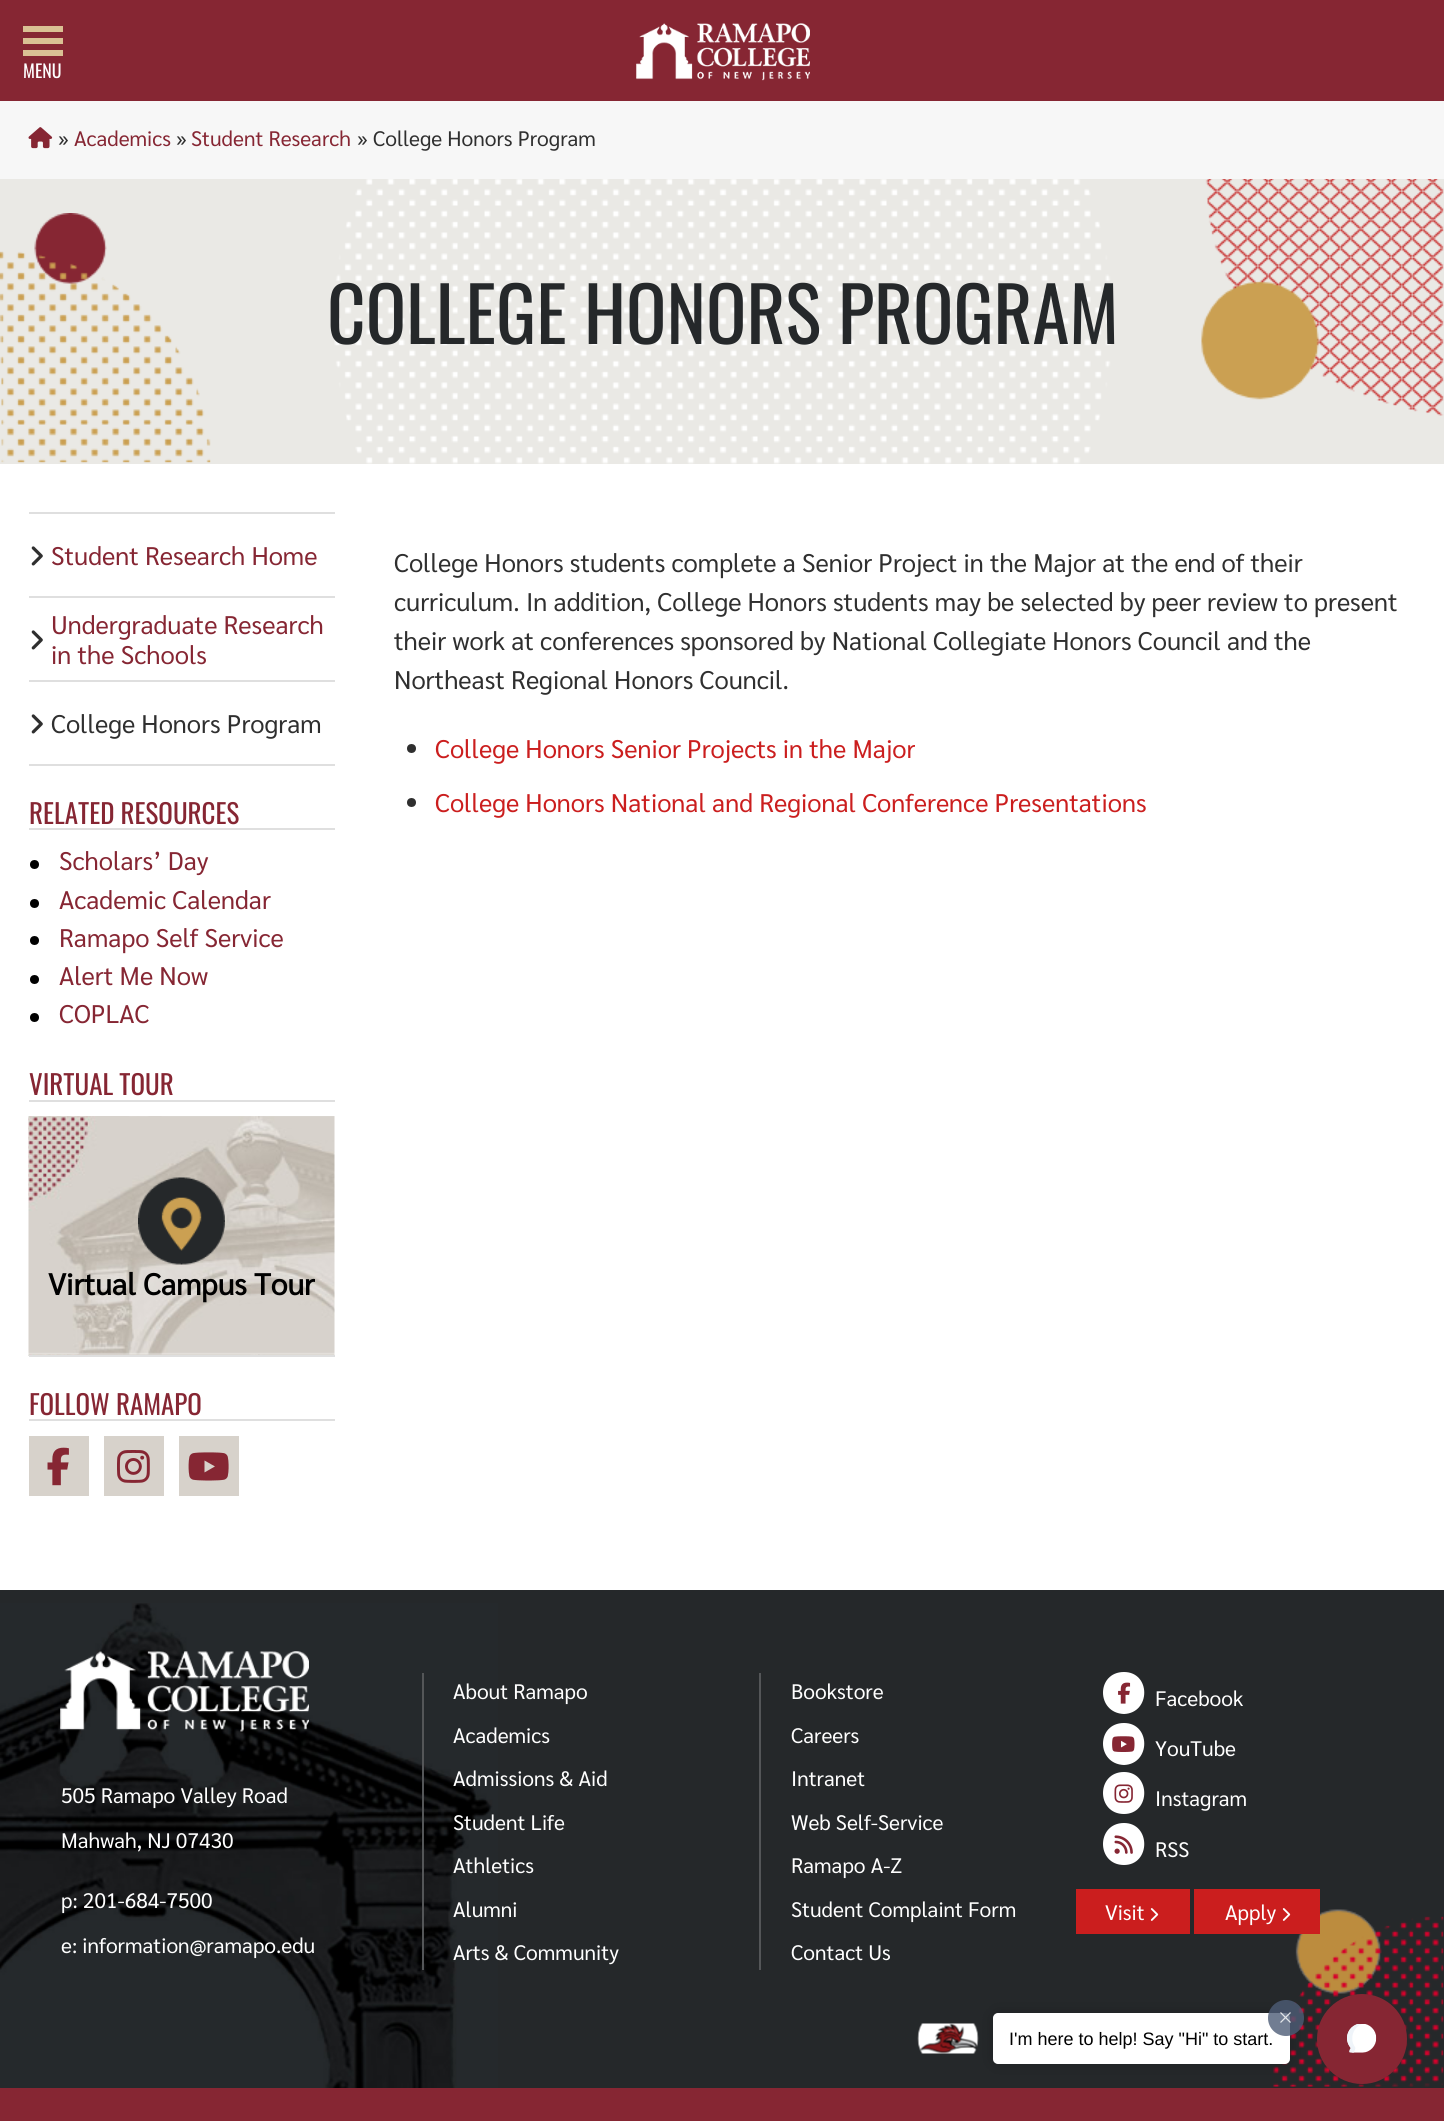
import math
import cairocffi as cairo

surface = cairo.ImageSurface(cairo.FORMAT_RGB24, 1444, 2121)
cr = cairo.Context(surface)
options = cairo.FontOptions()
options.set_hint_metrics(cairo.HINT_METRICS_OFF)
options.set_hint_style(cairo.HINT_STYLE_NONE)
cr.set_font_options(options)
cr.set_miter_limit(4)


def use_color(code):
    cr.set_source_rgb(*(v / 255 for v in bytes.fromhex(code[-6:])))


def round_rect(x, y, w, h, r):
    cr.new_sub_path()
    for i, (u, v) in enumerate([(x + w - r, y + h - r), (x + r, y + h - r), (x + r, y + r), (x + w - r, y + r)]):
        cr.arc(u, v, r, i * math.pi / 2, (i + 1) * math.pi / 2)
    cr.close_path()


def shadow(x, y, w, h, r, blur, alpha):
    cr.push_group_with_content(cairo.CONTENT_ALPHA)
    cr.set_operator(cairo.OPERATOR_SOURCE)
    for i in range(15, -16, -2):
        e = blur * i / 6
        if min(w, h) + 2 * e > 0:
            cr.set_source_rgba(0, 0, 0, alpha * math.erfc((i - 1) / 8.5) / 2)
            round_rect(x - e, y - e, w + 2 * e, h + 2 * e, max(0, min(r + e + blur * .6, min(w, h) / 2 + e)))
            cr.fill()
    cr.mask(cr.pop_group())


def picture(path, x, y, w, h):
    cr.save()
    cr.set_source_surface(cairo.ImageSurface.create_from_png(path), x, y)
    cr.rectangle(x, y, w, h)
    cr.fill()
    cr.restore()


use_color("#ffffff")
cr.paint()
use_color("#862633")
cr.rectangle(0, 0, 1444, 101)
cr.fill()
use_color("#dac094")
cr.rectangle(23, 26, 40, 6)
cr.fill()
cr.rectangle(23, 38, 40, 6)
cr.fill()
cr.rectangle(23, 50, 40, 6)
cr.fill()
cr.select_font_face("Oswald")
cr.set_font_size(18)
use_color("#ffffff")
cr.move_to(23, 78)
cr.show_text("MENU")
picture("img1.png", 636, 23, 174, 58)
use_color("#f7f7f7")
cr.rectangle(0, 101, 1444, 78)
cr.fill()
picture("img2.png", 28, 127, 25, 22)
cr.select_font_face("Sarabun")
cr.set_font_size(21)
use_color("#2f2f2f")
cr.move_to(58, 146)
cr.show_text("»")
use_color("#862633")
cr.move_to(74, 146)
cr.show_text("Academics")
use_color("#2f2f2f")
cr.move_to(176, 146)
cr.show_text("»")
use_color("#862633")
cr.move_to(191, 146)
cr.show_text("Student Research")
use_color("#2f2f2f")
cr.move_to(357, 146)
cr.show_text("» College Honors Program")
use_color("#eae9e5")
cr.rectangle(0, 179, 1444, 285)
cr.fill()
picture("img3.png", 0, 179, 1444, 285)
cr.select_font_face("Oswald")
cr.set_font_size(75)
use_color("#25282a")
cr.move_to(327, 344)
cr.show_text("COLLEGE HONORS PROGRAM")
use_color("#dfdfdf")
cr.rectangle(29, 512, 306, 2)
cr.fill()
cr.rectangle(29, 596, 306, 2)
cr.fill()
picture("img4.png", 31, 546, 12, 20)
cr.select_font_face("Sarabun")
cr.set_font_size(25.5)
use_color("#862633")
cr.move_to(51, 565)
cr.show_text("Student Research Home")
use_color("#dfdfdf")
cr.rectangle(29, 680, 306, 2)
cr.fill()
picture("img4.png", 31, 630, 12, 20)
use_color("#862633")
cr.move_to(51, 634)
cr.show_text("Undergraduate Research")
cr.move_to(51, 664)
cr.show_text("in the Schools")
use_color("#dfdfdf")
cr.rectangle(29, 764, 306, 2)
cr.fill()
picture("img4.png", 31, 714, 12, 20)
use_color("#2f2f2f")
cr.move_to(51, 733)
cr.show_text("College Honors Program")
use_color("#dfdfdf")
cr.rectangle(29, 828, 306, 2)
cr.fill()
cr.select_font_face("Oswald")
cr.set_font_size(27)
use_color("#862633")
cr.move_to(29, 824)
cr.show_text("RELATED RESOURCES")
use_color("#000000")
cr.new_path()
cr.arc(34.5, 864.5, 4.5, 0, 2 * math.pi)
cr.fill()
cr.select_font_face("Sarabun")
cr.set_font_size(25.5)
use_color("#862633")
cr.move_to(59, 870)
cr.show_text("Scholars’ Day")
use_color("#000000")
cr.new_path()
cr.arc(34.5, 903.5, 4.5, 0, 2 * math.pi)
cr.fill()
use_color("#862633")
cr.move_to(59, 909)
cr.show_text("Academic Calendar")
use_color("#000000")
cr.new_path()
cr.arc(34.5, 940.5, 4.5, 0, 2 * math.pi)
cr.fill()
use_color("#862633")
cr.move_to(59, 947)
cr.show_text("Ramapo Self Service")
use_color("#000000")
cr.new_path()
cr.arc(34.5, 979.5, 4.5, 0, 2 * math.pi)
cr.fill()
use_color("#862633")
cr.move_to(59, 985)
cr.show_text("Alert Me Now")
use_color("#000000")
cr.new_path()
cr.arc(34.5, 1017.5, 4.5, 0, 2 * math.pi)
cr.fill()
use_color("#862633")
cr.move_to(59, 1023)
cr.show_text("COPLAC")
use_color("#dfdfdf")
cr.rectangle(29, 1100, 306, 2)
cr.fill()
cr.select_font_face("Oswald")
cr.set_font_size(27)
use_color("#862633")
cr.move_to(29, 1095)
cr.show_text("VIRTUAL TOUR")
picture("img5.png", 28, 1116, 307, 240)
use_color("#dfdfdf")
cr.rectangle(29, 1355, 306, 2)
cr.fill()
picture("img6.png", 138, 1177, 87, 88)
cr.select_font_face("Sarabun", cairo.FONT_SLANT_NORMAL, cairo.FONT_WEIGHT_BOLD)
cr.set_font_size(30)
use_color("#000000")
cr.move_to(48, 1295)
cr.show_text("Virtual Campus Tour")
use_color("#dfdfdf")
cr.rectangle(29, 1419, 306, 2)
cr.fill()
cr.select_font_face("Oswald")
cr.set_font_size(27)
use_color("#862633")
cr.move_to(29, 1415)
cr.show_text("FOLLOW RAMAPO")
use_color("#d7d2cb")
cr.rectangle(29, 1436, 60, 60)
cr.fill()
picture("img7.png", 47, 1447, 22, 39)
cr.rectangle(104, 1436, 60, 60)
cr.fill()
picture("img8.png", 117, 1450, 33, 33)
cr.rectangle(179, 1436, 60, 60)
cr.fill()
picture("img9.png", 188, 1452, 41, 29)
cr.select_font_face("Sarabun")
cr.set_font_size(25.5)
use_color("#2f2f2f")
cr.move_to(394, 572)
cr.show_text("College Honors students complete a Senior Project in the Major at the end of their")
cr.move_to(394, 611)
cr.show_text("curriculum. In addition, College Honors students may be selected by peer review to present")
cr.move_to(394, 650)
cr.show_text("their work at conferences sponsored by National Collegiate Honors Council and the")
cr.move_to(394, 689)
cr.show_text("Northeast Regional Honors Council.")
cr.new_path()
cr.arc(411.5, 748.5, 4.5, 0, 2 * math.pi)
cr.fill()
use_color("#cb1e1e")
cr.move_to(435, 758)
cr.show_text("College Honors Senior Projects in the Major")
use_color("#2f2f2f")
cr.new_path()
cr.arc(411.5, 802.5, 4.5, 0, 2 * math.pi)
cr.fill()
use_color("#cb1e1e")
cr.move_to(435, 812)
cr.show_text("College Honors National and Regional Conference Presentations")
use_color("#25282a")
cr.rectangle(0, 1590, 1444, 498)
cr.fill()
picture("img10.png", 0, 1603, 1444, 485)
picture("img11.png", 60, 1651, 249, 81)
cr.set_font_size(21)
use_color("#ffffff")
cr.move_to(61, 1803)
cr.show_text("505 Ramapo Valley Road")
cr.move_to(61, 1848)
cr.show_text("Mahwah, NJ 07430")
cr.move_to(61, 1908)
cr.show_text("p: 201-684-7500")
cr.move_to(61, 1953)
cr.show_text("e: information@ramapo.edu")
use_color("#545658")
cr.rectangle(422, 1673, 2, 297)
cr.fill()
use_color("#ffffff")
cr.move_to(453, 1699)
cr.show_text("About Ramapo")
cr.move_to(453, 1743)
cr.show_text("Academics")
cr.move_to(453, 1786)
cr.show_text("Admissions & Aid")
cr.move_to(453, 1830)
cr.show_text("Student Life")
cr.move_to(453, 1873)
cr.show_text("Athletics")
cr.move_to(453, 1917)
cr.show_text("Alumni")
cr.move_to(453, 1960)
cr.show_text("Arts & Community")
use_color("#545658")
cr.rectangle(759, 1673, 2, 297)
cr.fill()
use_color("#ffffff")
cr.move_to(791, 1699)
cr.show_text("Bookstore")
cr.move_to(791, 1743)
cr.show_text("Careers")
cr.move_to(791, 1786)
cr.show_text("Intranet")
cr.move_to(791, 1830)
cr.show_text("Web Self-Service")
cr.move_to(791, 1873)
cr.show_text("Ramapo A-Z")
cr.move_to(791, 1917)
cr.show_text("Student Complaint Form")
cr.move_to(791, 1960)
cr.show_text("Contact Us")
cr.new_path()
cr.move_to(1124, 1714)
cr.curve_to(1151, 1713, 1151, 1672, 1124, 1672)
cr.curve_to(1096, 1672, 1096, 1713, 1124, 1714)
cr.close_path()
cr.fill()
picture("img12.png", 1118, 1682, 13, 22)
cr.move_to(1155, 1706)
cr.show_text("Facebook")
cr.new_path()
cr.move_to(1124, 1765)
cr.curve_to(1151, 1764, 1151, 1723, 1124, 1723)
cr.curve_to(1096, 1723, 1096, 1764, 1124, 1765)
cr.close_path()
cr.fill()
picture("img13.png", 1112, 1736, 23, 16)
cr.move_to(1155, 1756)
cr.show_text("YouTube")
cr.new_path()
cr.move_to(1124, 1814)
cr.curve_to(1151, 1814, 1151, 1772, 1124, 1772)
cr.curve_to(1096, 1772, 1096, 1814, 1124, 1814)
cr.close_path()
cr.fill()
picture("img14.png", 1114, 1784, 19, 19)
cr.move_to(1155, 1806)
cr.show_text("Instagram")
cr.new_path()
cr.move_to(1124, 1865)
cr.curve_to(1151, 1865, 1151, 1823, 1124, 1823)
cr.curve_to(1096, 1823, 1096, 1865, 1124, 1865)
cr.close_path()
cr.fill()
picture("img15.png", 1114, 1835, 19, 19)
cr.move_to(1155, 1857)
cr.show_text("RSS")
use_color("#cb1e1e")
cr.rectangle(1076, 1889, 114, 45)
cr.fill()
use_color("#ffffff")
cr.move_to(1105, 1920)
cr.show_text("Visit")
picture("img16.png", 1150, 1908, 9, 13)
use_color("#cb1e1e")
cr.rectangle(1194, 1889, 126, 45)
cr.fill()
use_color("#ffffff")
cr.move_to(1225, 1920)
cr.show_text("Apply")
picture("img16.png", 1282, 1908, 9, 13)
use_color("#862633")
cr.rectangle(0, 2088, 1444, 33)
cr.fill()
picture("img17.png", 917, 2023, 62, 31)
use_color("#000000")
shadow(993, 2013, 297, 51, 5, 7.5, 0.2)
use_color("#ffffff")
round_rect(994, 2014, 295, 49, 4)
cr.fill_preserve()
cr.stroke()
cr.select_font_face("Liberation Sans")
cr.set_font_size(18)
use_color("#000000")
cr.move_to(1009, 2045)
cr.show_text("I'm here to help! Say \"Hi\" to start.")
cr.set_source_rgba(0.306, 0.365, 0.467, 0.8)
cr.new_path()
cr.arc(1286, 2018, 18, 0, 2 * math.pi)
cr.fill()
picture("img18.png", 1280, 2012, 11, 11)
use_color("#862633")
cr.arc(1362, 2039, 45, 0, 2 * math.pi)
cr.fill()
picture("img19.png", 1347, 2024, 30, 29)
surface.write_to_png("result.png")
